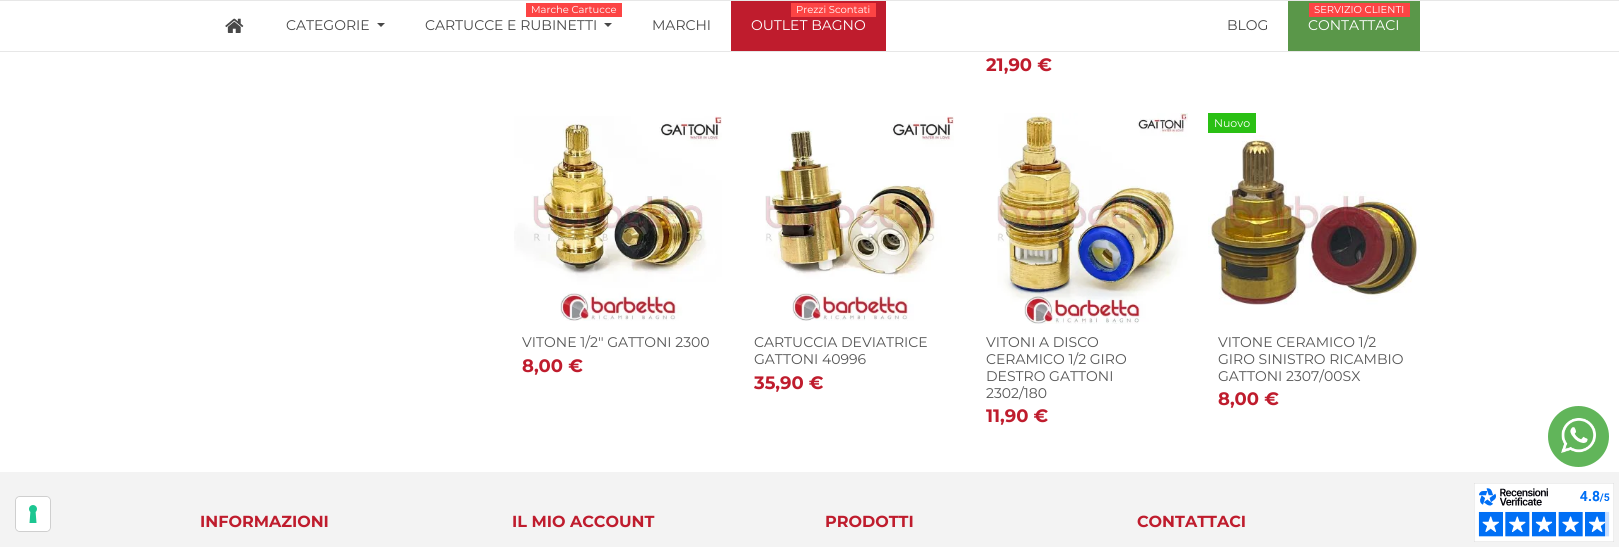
import math
import cairocffi as cairo

surface = cairo.ImageSurface(cairo.FORMAT_RGB24, 1619, 547)
cr = cairo.Context(surface)
options = cairo.FontOptions()
options.set_hint_metrics(cairo.HINT_METRICS_OFF)
options.set_hint_style(cairo.HINT_STYLE_NONE)
cr.set_font_options(options)
cr.set_miter_limit(4)


def use_color(code):
    cr.set_source_rgb(*(v / 255 for v in bytes.fromhex(code[-6:])))


def round_rect(x, y, w, h, r):
    cr.new_sub_path()
    for i, (u, v) in enumerate([(x + w - r, y + h - r), (x + r, y + h - r), (x + r, y + r), (x + w - r, y + r)]):
        cr.arc(u, v, r, i * math.pi / 2, (i + 1) * math.pi / 2)
    cr.close_path()


def picture(path, x, y, w, h):
    cr.save()
    cr.set_source_surface(cairo.ImageSurface.create_from_png(path), x, y)
    cr.rectangle(x, y, w, h)
    cr.fill()
    cr.restore()


use_color("#ffffff")
cr.paint()
use_color("#e7e7e7")
cr.rectangle(0, 0, 1619, 1)
cr.fill()
cr.rectangle(0, 51, 1619, 1)
cr.fill()
picture("img1.png", 225, 18, 19, 15)
cr.select_font_face("Montserrat")
cr.set_font_size(14)
use_color("#484848")
cr.move_to(286, 30)
cr.show_text("CATEGORIE")
cr.new_path()
cr.move_to(377, 23)
cr.line_to(385, 23)
cr.line_to(381, 27)
cr.close_path()
cr.fill()
use_color("#fc4444")
cr.rectangle(526, 3, 96, 14)
cr.fill()
cr.set_font_size(10)
use_color("#ffffff")
cr.move_to(531, 13)
cr.show_text("Marche Cartucce")
cr.set_font_size(14)
use_color("#484848")
cr.move_to(425, 30)
cr.show_text("CARTUCCE E RUBINETTI")
cr.new_path()
cr.move_to(604, 23)
cr.line_to(612, 23)
cr.line_to(608, 27)
cr.close_path()
cr.fill()
cr.move_to(652, 30)
cr.show_text("MARCHI")
use_color("#bf1c2d")
cr.rectangle(731, 1, 155, 50)
cr.fill()
use_color("#fc4444")
cr.rectangle(791, 3, 85, 14)
cr.fill()
cr.set_font_size(10)
use_color("#ffffff")
cr.move_to(796, 13)
cr.show_text("Prezzi Scontati")
cr.set_font_size(14)
cr.move_to(751, 30)
cr.show_text("OUTLET BAGNO")
use_color("#484848")
cr.move_to(1227, 30)
cr.show_text("BLOG")
use_color("#5a9749")
cr.rectangle(1288, 1, 132, 50)
cr.fill()
use_color("#fc4444")
cr.rectangle(1309, 3, 101, 14)
cr.fill()
cr.set_font_size(10)
use_color("#ffffff")
cr.move_to(1314, 13)
cr.show_text("SERVIZIO CLIENTI")
cr.set_font_size(14)
cr.move_to(1308, 30)
cr.show_text("CONTATTACI")
cr.select_font_face("Montserrat", cairo.FONT_SLANT_NORMAL, cairo.FONT_WEIGHT_BOLD)
cr.set_font_size(18)
use_color("#bf1c2d")
cr.move_to(986, 71)
cr.show_text("21,90 €")
picture("img2.png", 514, 116, 208, 205)
cr.select_font_face("Montserrat")
cr.set_font_size(14)
use_color("#555555")
cr.move_to(522, 347)
cr.show_text("VITONE 1/2'' GATTONI 2300")
cr.select_font_face("Montserrat", cairo.FONT_SLANT_NORMAL, cairo.FONT_WEIGHT_BOLD)
cr.set_font_size(18)
use_color("#bf1c2d")
cr.move_to(522, 372)
cr.show_text("8,00 €")
picture("img3.png", 765, 116, 189, 205)
cr.select_font_face("Montserrat")
cr.set_font_size(14)
use_color("#555555")
cr.move_to(754, 347)
cr.show_text("CARTUCCIA DEVIATRICE")
cr.move_to(754, 364)
cr.show_text("GATTONI 40996")
cr.select_font_face("Montserrat", cairo.FONT_SLANT_NORMAL, cairo.FONT_WEIGHT_BOLD)
cr.set_font_size(18)
use_color("#bf1c2d")
cr.move_to(754, 389)
cr.show_text("35,90 €")
picture("img4.png", 997, 113, 191, 211)
cr.select_font_face("Montserrat")
cr.set_font_size(14)
use_color("#555555")
cr.move_to(986, 347)
cr.show_text("VITONI A DISCO")
cr.move_to(986, 364)
cr.show_text("CERAMICO 1/2 GIRO")
cr.move_to(986, 381)
cr.show_text("DESTRO GATTONI")
cr.move_to(986, 398)
cr.show_text("2302/180")
cr.select_font_face("Montserrat", cairo.FONT_SLANT_NORMAL, cairo.FONT_WEIGHT_BOLD)
cr.set_font_size(18)
use_color("#bf1c2d")
cr.move_to(986, 422)
cr.show_text("11,90 €")
use_color("#2ac014")
cr.rectangle(1208, 113, 48, 20)
cr.fill()
cr.select_font_face("Montserrat")
cr.set_font_size(11)
use_color("#ffffff")
cr.move_to(1214, 127)
cr.show_text("Nuovo")
picture("img5.png", 1208, 135, 212, 170)
cr.set_font_size(14)
use_color("#555555")
cr.move_to(1218, 347)
cr.show_text("VITONE CERAMICO 1/2")
cr.move_to(1218, 364)
cr.show_text("GIRO SINISTRO RICAMBIO")
cr.move_to(1218, 381)
cr.show_text("GATTONI 2307/00SX")
cr.select_font_face("Montserrat", cairo.FONT_SLANT_NORMAL, cairo.FONT_WEIGHT_BOLD)
cr.set_font_size(18)
use_color("#bf1c2d")
cr.move_to(1218, 405)
cr.show_text("8,00 €")
use_color("#f3f3f3")
cr.rectangle(0, 472, 1619, 75)
cr.fill()
cr.set_font_size(16)
use_color("#bf1c2d")
cr.move_to(200, 527)
cr.show_text("INFORMAZIONI")
cr.move_to(512, 527)
cr.show_text("IL MIO ACCOUNT")
cr.move_to(825, 527)
cr.show_text("PRODOTTI")
cr.move_to(1137, 527)
cr.show_text("CONTATTACI")
use_color("#61b55a")
cr.new_path()
cr.arc(1578.5, 436.5, 30.5, 0, 2 * math.pi)
cr.fill()
picture("img6.png", 1561, 418, 35, 35)
round_rect(15.5, 496.5, 35, 35, 4.5)
use_color("#cfcfcf")
cr.set_line_width(1)
cr.stroke()
use_color("#ffffff")
round_rect(16, 497, 34, 34, 4)
cr.fill()
picture("img7.png", 29, 505, 8, 18)
picture("img8.png", 1474, 483, 140, 59)
surface.write_to_png("result.png")
